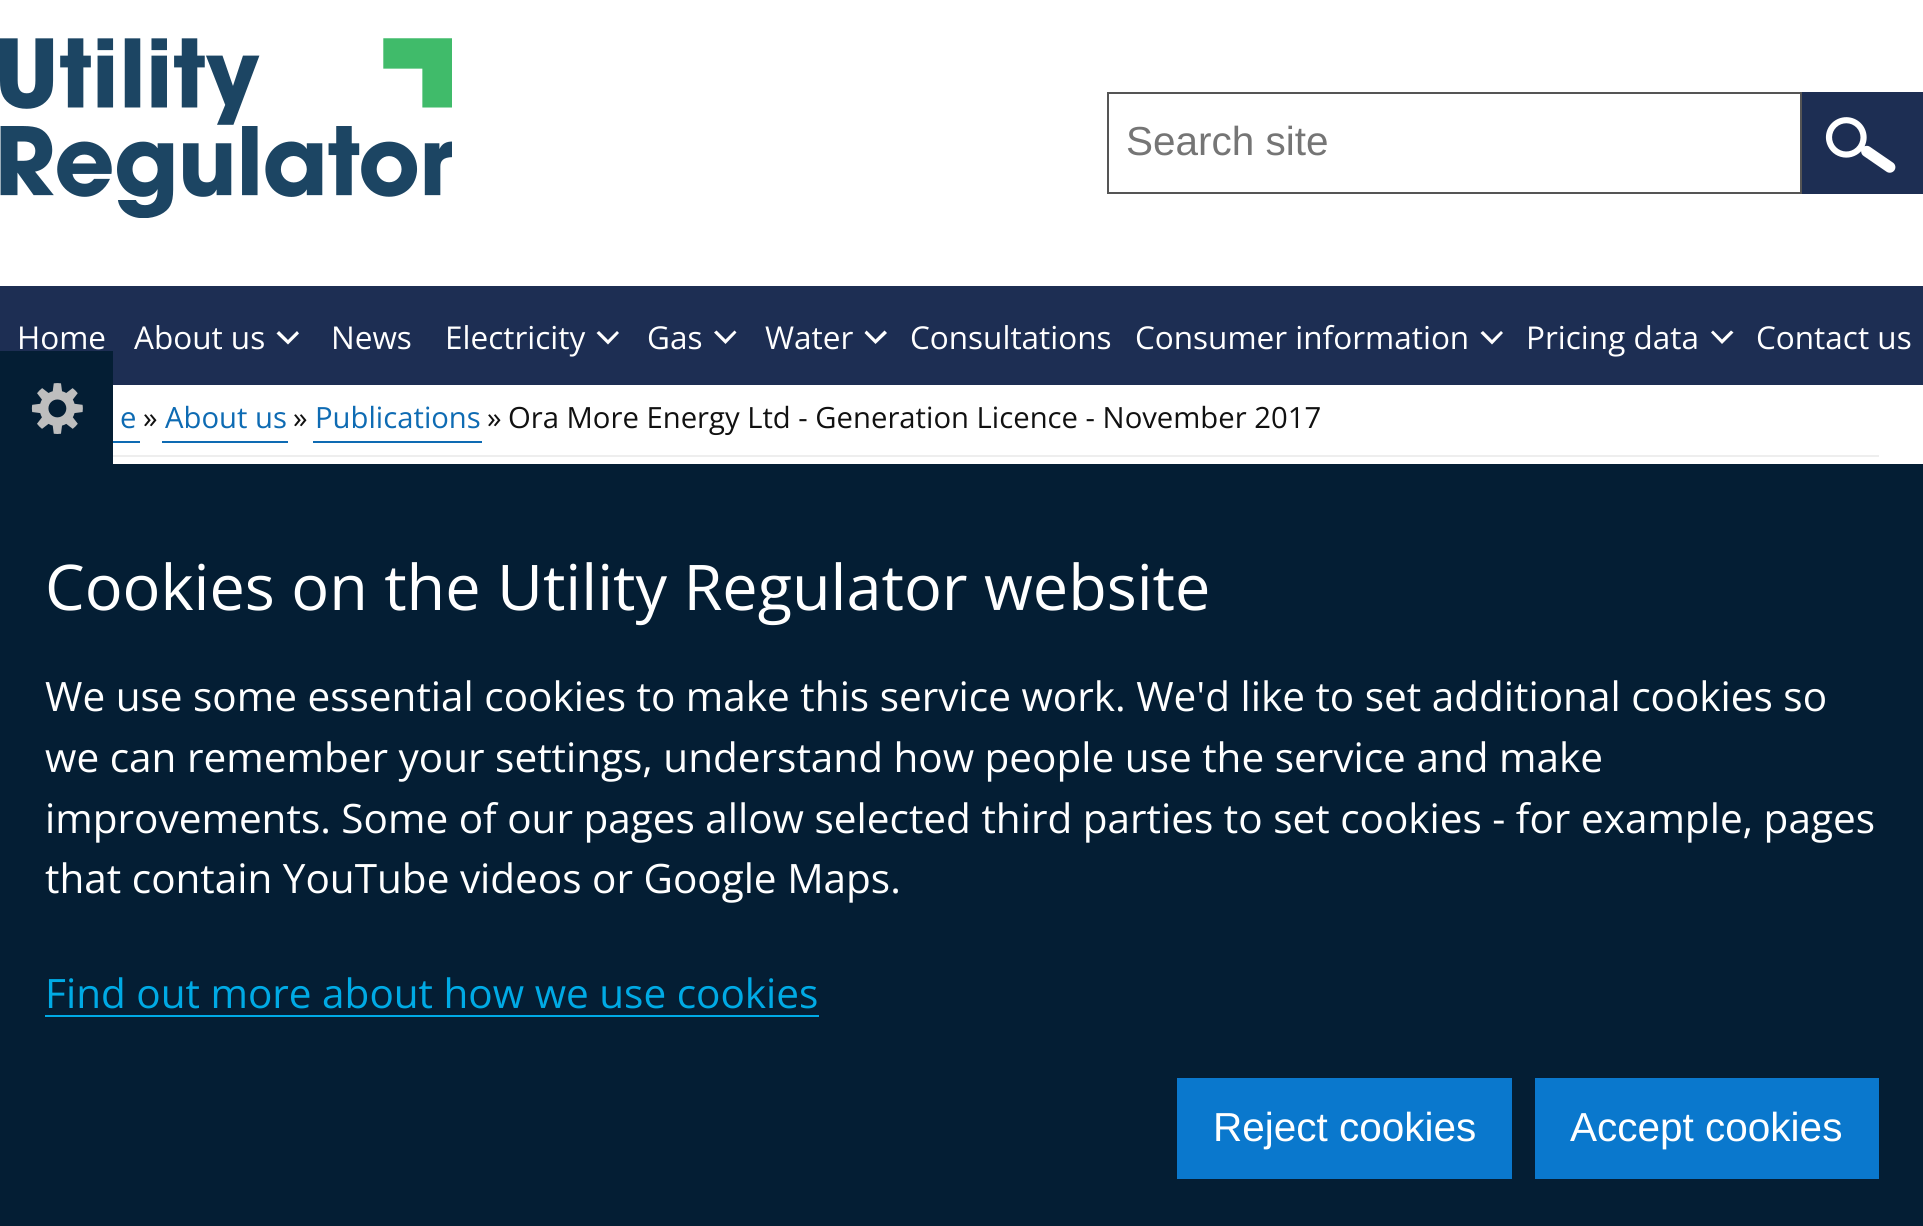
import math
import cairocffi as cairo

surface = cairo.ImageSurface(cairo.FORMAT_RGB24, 1923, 1226)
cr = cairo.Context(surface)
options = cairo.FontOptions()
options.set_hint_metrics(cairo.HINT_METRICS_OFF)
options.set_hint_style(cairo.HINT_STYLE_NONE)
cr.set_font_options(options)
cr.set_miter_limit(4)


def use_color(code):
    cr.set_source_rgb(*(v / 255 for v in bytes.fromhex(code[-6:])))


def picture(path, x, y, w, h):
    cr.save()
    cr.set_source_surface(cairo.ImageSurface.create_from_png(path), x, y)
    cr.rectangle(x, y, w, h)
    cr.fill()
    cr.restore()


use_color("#ffffff")
cr.paint()
picture("img1.png", 0, 38, 452, 180)
cr.rectangle(1108, 93, 693, 100)
use_color("#555555")
cr.stroke()
cr.select_font_face("Liberation Sans")
cr.set_font_size(40.5)
use_color("#757575")
cr.move_to(1126, 155)
cr.show_text("Search site")
use_color("#1d2e53")
cr.rectangle(1802, 92, 121, 102)
cr.fill()
picture("img2.png", 1825, 117, 71, 56)
cr.rectangle(0, 286, 1923, 99)
cr.fill()
cr.select_font_face("Open Sans")
cr.set_font_size(31.5)
use_color("#ffffff")
cr.move_to(17, 349)
cr.show_text("Home")
cr.move_to(134, 349)
cr.show_text("About us")
cr.new_path()
cr.move_to(288, 344.5)
cr.line_to(276.5, 333.5)
cr.line_to(279, 331)
cr.line_to(288, 340)
cr.line_to(297, 331)
cr.line_to(299, 333.5)
cr.close_path()
cr.fill()
cr.move_to(331, 349)
cr.show_text("News")
cr.move_to(445, 349)
cr.show_text("Electricity")
cr.new_path()
cr.move_to(608, 344.5)
cr.line_to(596.5, 333)
cr.line_to(599, 331)
cr.line_to(608, 340)
cr.line_to(617, 331)
cr.line_to(619, 333)
cr.close_path()
cr.fill()
cr.move_to(647, 349)
cr.show_text("Gas")
cr.new_path()
cr.move_to(725.5, 344)
cr.line_to(714, 332.5)
cr.line_to(716.5, 330.5)
cr.line_to(725.5, 339.5)
cr.line_to(734.5, 330.5)
cr.line_to(736.5, 332.5)
cr.close_path()
cr.fill()
cr.move_to(765, 349)
cr.show_text("Water")
cr.new_path()
cr.move_to(875.5, 344)
cr.line_to(864.5, 333)
cr.line_to(866.5, 330.5)
cr.line_to(875.5, 339.5)
cr.line_to(884.5, 330.5)
cr.line_to(887, 333)
cr.close_path()
cr.fill()
cr.move_to(910, 349)
cr.show_text("Consultations")
cr.move_to(1135, 349)
cr.show_text("Consumer information")
cr.new_path()
cr.move_to(1492, 344.5)
cr.line_to(1480.5, 333)
cr.line_to(1483, 331)
cr.line_to(1492, 340)
cr.line_to(1501, 331)
cr.line_to(1503, 333)
cr.close_path()
cr.fill()
cr.move_to(1526, 349)
cr.show_text("Pricing data")
cr.new_path()
cr.move_to(1722, 344)
cr.line_to(1711, 332.5)
cr.line_to(1713, 330.5)
cr.line_to(1722, 339.5)
cr.line_to(1731, 330.5)
cr.line_to(1733.5, 332.5)
cr.close_path()
cr.fill()
cr.move_to(1756, 349)
cr.show_text("Contact us")
use_color("#eeeeee")
cr.rectangle(113, 455, 1766, 2)
cr.fill()
use_color("#0e6bb3")
cr.rectangle(113, 441, 27, 2)
cr.fill()
cr.set_font_size(29.25)
cr.move_to(120, 428)
cr.show_text("e")
use_color("#111111")
cr.move_to(143, 428)
cr.show_text("»")
use_color("#0e6bb3")
cr.rectangle(162, 441, 126, 2)
cr.fill()
cr.move_to(165, 428)
cr.show_text("About us")
use_color("#111111")
cr.move_to(293, 428)
cr.show_text("»")
use_color("#0e6bb3")
cr.rectangle(313, 441, 169, 2)
cr.fill()
cr.move_to(315, 428)
cr.show_text("Publications")
use_color("#111111")
cr.move_to(487, 428)
cr.show_text("»")
cr.move_to(508, 428)
cr.show_text("Ora More Energy Ltd - Generation Licence - November 2017")
use_color("#041e34")
cr.rectangle(0, 351, 113, 113)
cr.fill()
picture("img3.png", 31, 383, 52, 51)
cr.rectangle(0, 464, 1923, 762)
cr.fill()
cr.set_font_size(63)
use_color("#ffffff")
cr.move_to(45, 610)
cr.show_text("Cookies on the Utility Regulator website")
cr.set_font_size(40.5)
cr.move_to(45, 711)
cr.show_text("We use some essential cookies to make this service work. We'd like to set additional cookies so")
cr.move_to(45, 772)
cr.show_text("we can remember your settings, understand how people use the service and make")
cr.move_to(45, 833)
cr.show_text("improvements. Some of our pages allow selected third parties to set cookies - for example, pages")
cr.move_to(45, 893)
cr.show_text("that contain YouTube videos or Google Maps.")
use_color("#00aae5")
cr.move_to(45, 1008)
cr.show_text("Find out more about how we use cookies")
cr.rectangle(45, 1015, 774, 2)
cr.fill()
use_color("#0a78cd")
cr.rectangle(1177, 1078, 335, 101)
cr.fill()
cr.select_font_face("Liberation Sans")
use_color("#ffffff")
cr.move_to(1213, 1141)
cr.show_text("Reject cookies")
use_color("#0a78cd")
cr.rectangle(1535, 1078, 344, 101)
cr.fill()
use_color("#ffffff")
cr.move_to(1570, 1141)
cr.show_text("Accept cookies")
surface.write_to_png("result.png")
